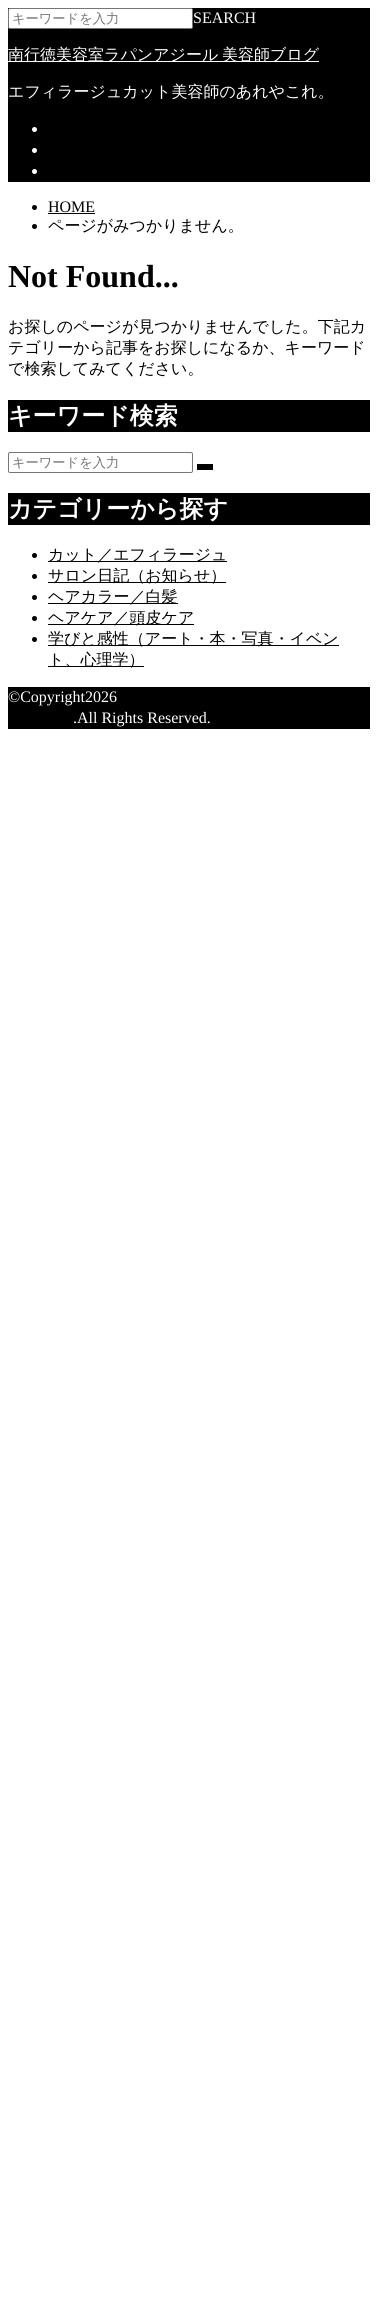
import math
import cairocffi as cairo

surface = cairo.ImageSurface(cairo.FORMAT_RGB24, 378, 2322)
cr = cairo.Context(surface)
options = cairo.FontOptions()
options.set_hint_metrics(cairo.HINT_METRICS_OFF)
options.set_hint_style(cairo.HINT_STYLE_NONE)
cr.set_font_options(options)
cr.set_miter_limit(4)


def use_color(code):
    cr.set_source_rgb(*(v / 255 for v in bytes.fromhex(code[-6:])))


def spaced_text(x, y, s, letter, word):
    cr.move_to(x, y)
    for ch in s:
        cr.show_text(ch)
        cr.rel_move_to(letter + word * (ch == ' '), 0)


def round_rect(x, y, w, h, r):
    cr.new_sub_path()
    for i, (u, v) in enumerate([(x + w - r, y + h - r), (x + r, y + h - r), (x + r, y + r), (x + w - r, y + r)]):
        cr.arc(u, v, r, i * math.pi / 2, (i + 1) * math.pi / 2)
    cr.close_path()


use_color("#ffffff")
cr.paint()
use_color("#000000")
cr.rectangle(8, 8, 362, 174)
cr.fill()
use_color("#ffffff")
round_rect(8.5, 8.5, 184, 20, 1.5)
cr.fill_preserve()
use_color("#767676")
cr.set_line_width(1)
cr.stroke()
cr.select_font_face("WenQuanYi Zen Hei Medium")
cr.set_font_size(13.25)
use_color("#757575")
cr.move_to(12, 23)
cr.show_text("キーワードを入力")
cr.select_font_face("Liberation Serif")
cr.set_font_size(16)
use_color("#ffffff")
cr.move_to(193, 23)
cr.show_text("SEARCH")
cr.rectangle(8, 61, 311, 1)
cr.fill()
cr.select_font_face("WenQuanYi Zen Hei Medium")
spaced_text(8, 60, "南行徳美容室ラパンアジール 美容師ブログ", 0, -1)
cr.move_to(8, 97)
cr.show_text("エフィラージュカット美容師のあれやこれ。")
cr.new_path()
cr.arc(34.5, 129.5, 2.5, 0, 2 * math.pi)
cr.fill()
cr.arc(34.5, 150.5, 2.5, 0, 2 * math.pi)
cr.fill()
cr.arc(34.5, 171.5, 2.5, 0, 2 * math.pi)
cr.fill()
use_color("#000000")
cr.arc(34.5, 207.5, 2.5, 0, 2 * math.pi)
cr.fill()
cr.select_font_face("Liberation Serif")
cr.move_to(48, 212)
cr.show_text("HOME")
cr.rectangle(48, 213, 47, 1)
cr.fill()
cr.arc(34.5, 226.5, 2.5, 0, 2 * math.pi)
cr.fill()
cr.select_font_face("WenQuanYi Zen Hei Medium")
cr.move_to(48, 231)
cr.show_text("ページがみつかりません。")
cr.select_font_face("Liberation Serif", cairo.FONT_SLANT_NORMAL, cairo.FONT_WEIGHT_BOLD)
cr.set_font_size(32)
cr.move_to(8, 287)
cr.show_text("Not Found...")
cr.select_font_face("WenQuanYi Zen Hei Medium")
cr.set_font_size(16)
cr.move_to(8, 332)
cr.show_text("お探しのページが見つかりませんでした。下記カ")
cr.move_to(8, 353)
cr.show_text("テゴリーから記事をお探しになるか、キーワード")
cr.move_to(8, 374)
cr.show_text("で検索してみてください。")
cr.rectangle(8, 400, 362, 32)
cr.fill()
cr.select_font_face("WenQuanYi Zen Hei", cairo.FONT_SLANT_NORMAL, cairo.FONT_WEIGHT_BOLD)
cr.set_font_size(24)
use_color("#ffffff")
cr.move_to(8, 424)
cr.show_text("キーワード検索")
round_rect(8.5, 452.5, 184, 20, 1.5)
use_color("#767676")
cr.stroke()
cr.select_font_face("WenQuanYi Zen Hei Medium")
cr.set_font_size(13.25)
use_color("#757575")
cr.move_to(12, 467)
cr.show_text("キーワードを入力")
use_color("#000000")
cr.rectangle(197, 464, 16, 6)
cr.fill()
cr.rectangle(8, 493, 362, 32)
cr.fill()
cr.select_font_face("WenQuanYi Zen Hei", cairo.FONT_SLANT_NORMAL, cairo.FONT_WEIGHT_BOLD)
cr.set_font_size(24)
use_color("#ffffff")
cr.move_to(8, 517)
cr.show_text("カテゴリーから探す")
use_color("#000000")
cr.new_path()
cr.arc(34.5, 555.5, 2.5, 0, 2 * math.pi)
cr.fill()
cr.rectangle(48, 561, 179, 1)
cr.fill()
cr.select_font_face("WenQuanYi Zen Hei Medium")
cr.set_font_size(16)
cr.move_to(48, 560)
cr.show_text("カット／エフィラージュ")
cr.new_path()
cr.arc(34.5, 576.5, 2.5, 0, 2 * math.pi)
cr.fill()
cr.rectangle(48, 582, 178, 1)
cr.fill()
cr.move_to(48, 581)
cr.show_text("サロン日記（お知らせ）")
cr.new_path()
cr.arc(34.5, 597.5, 2.5, 0, 2 * math.pi)
cr.fill()
cr.rectangle(48, 603, 130, 1)
cr.fill()
cr.move_to(48, 602)
cr.show_text("ヘアカラー／白髪")
cr.new_path()
cr.arc(34.5, 618.5, 2.5, 0, 2 * math.pi)
cr.fill()
cr.rectangle(48, 624, 146, 1)
cr.fill()
cr.move_to(48, 623)
cr.show_text("ヘアケア／頭皮ケア")
cr.new_path()
cr.arc(34.5, 639.5, 2.5, 0, 2 * math.pi)
cr.fill()
cr.rectangle(48, 645, 291, 1)
cr.fill()
cr.move_to(48, 644)
cr.show_text("学びと感性（アート・本・写真・イベン")
cr.rectangle(48, 666, 96, 1)
cr.fill()
cr.move_to(48, 665)
cr.show_text("ト、心理学）")
cr.rectangle(8, 687, 362, 42)
cr.fill()
cr.select_font_face("Liberation Serif")
use_color("#ffffff")
cr.move_to(8, 702)
cr.show_text("©Copyright2026")
cr.move_to(73, 723)
cr.show_text(".All Rights Reserved.")
surface.write_to_png("result.png")
